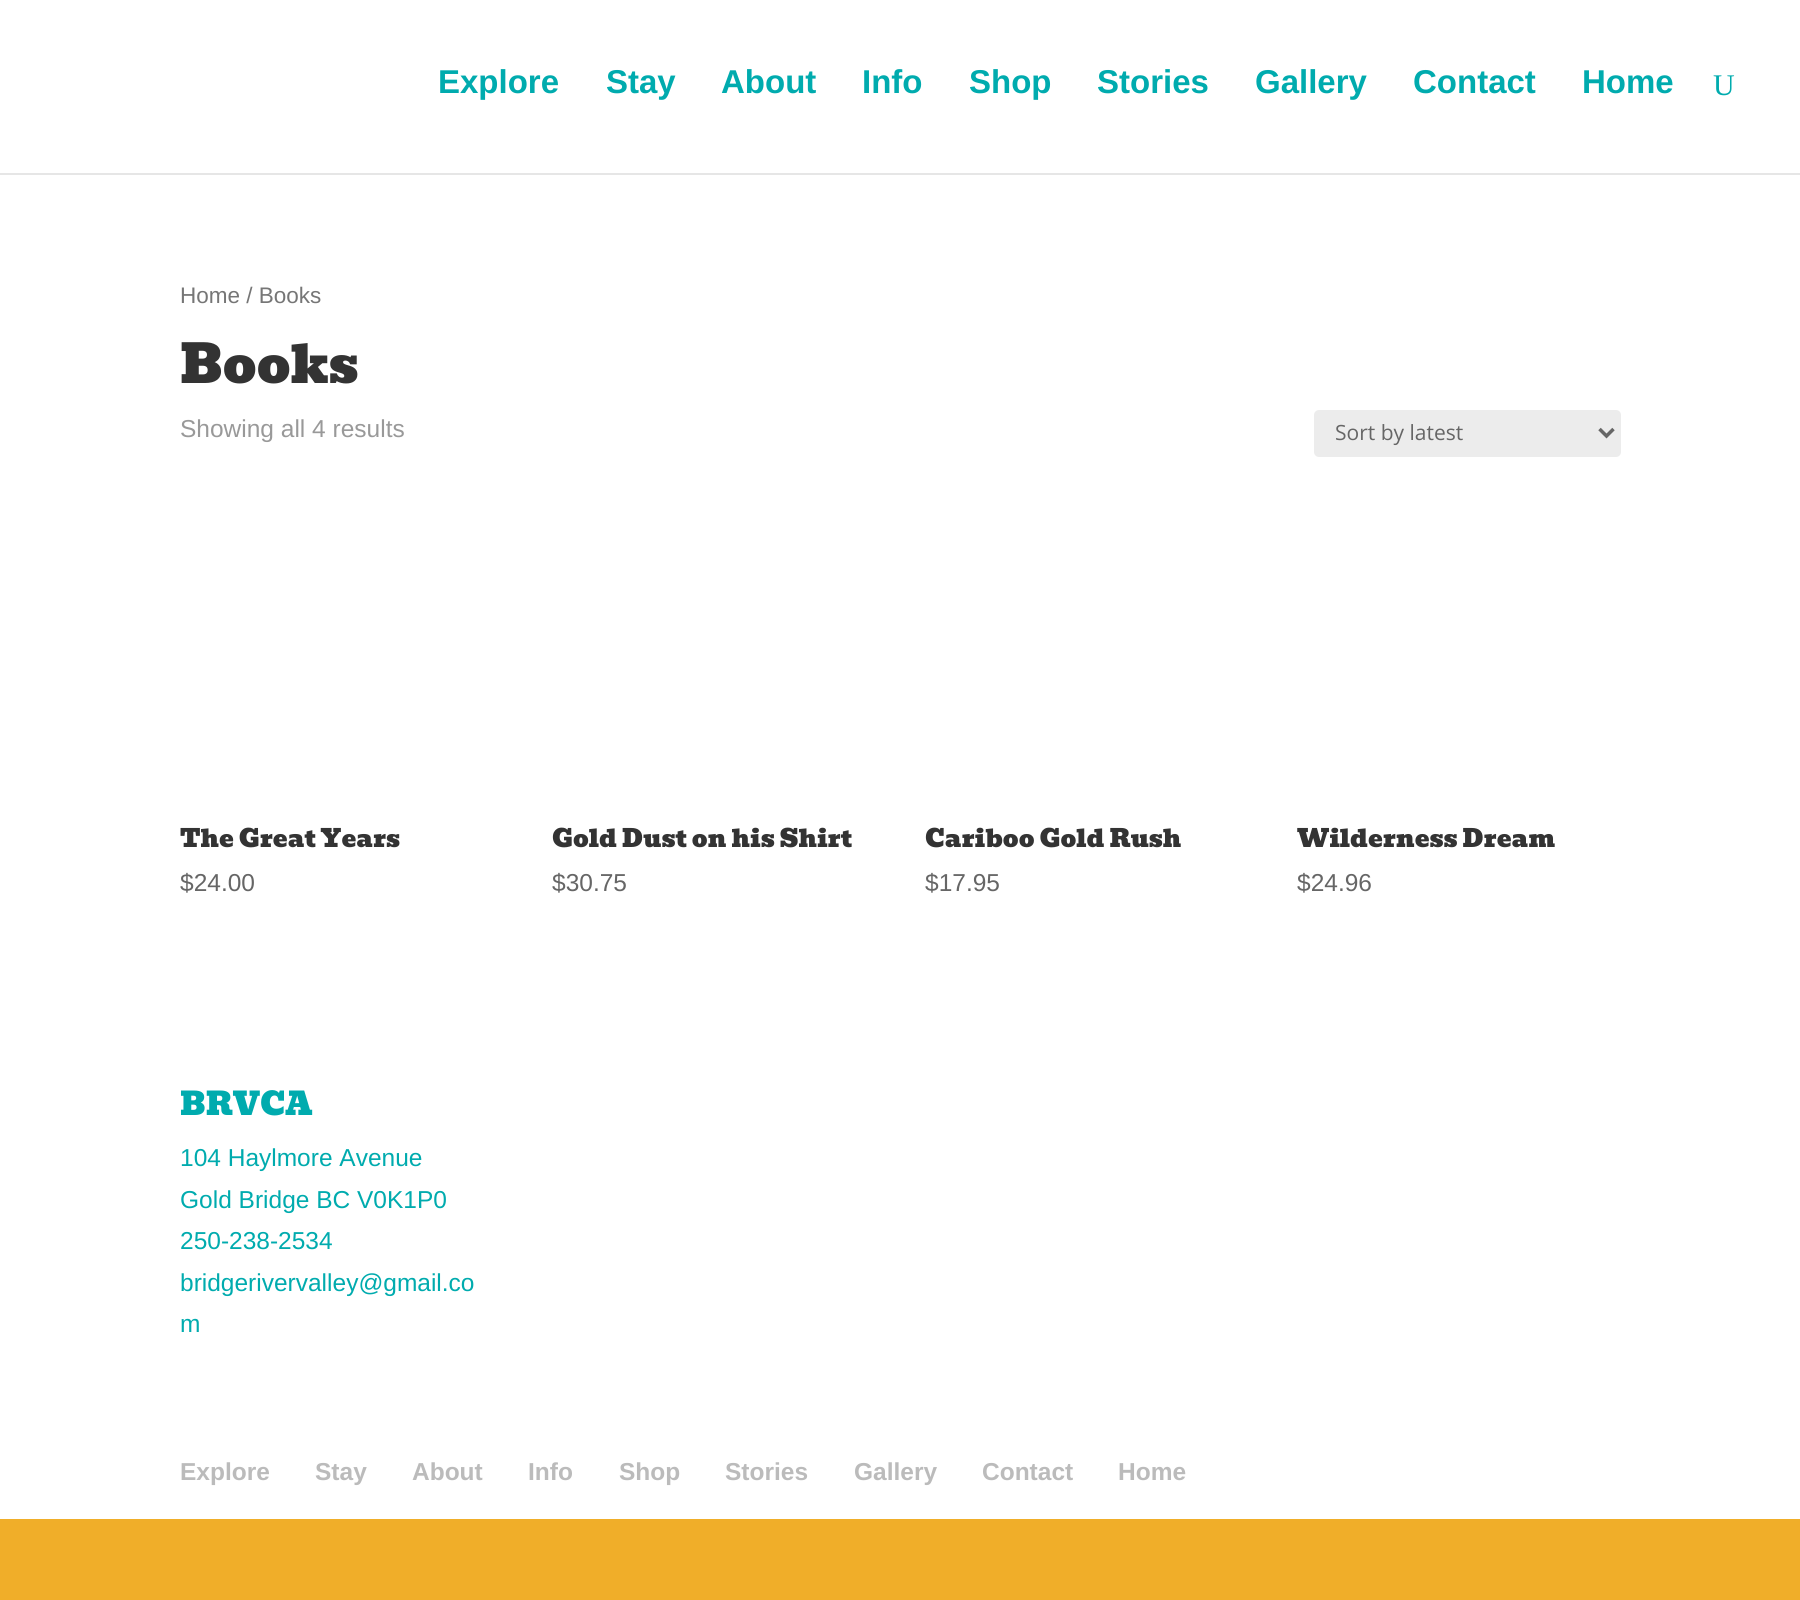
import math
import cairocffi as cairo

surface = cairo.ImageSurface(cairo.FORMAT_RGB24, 1800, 1600)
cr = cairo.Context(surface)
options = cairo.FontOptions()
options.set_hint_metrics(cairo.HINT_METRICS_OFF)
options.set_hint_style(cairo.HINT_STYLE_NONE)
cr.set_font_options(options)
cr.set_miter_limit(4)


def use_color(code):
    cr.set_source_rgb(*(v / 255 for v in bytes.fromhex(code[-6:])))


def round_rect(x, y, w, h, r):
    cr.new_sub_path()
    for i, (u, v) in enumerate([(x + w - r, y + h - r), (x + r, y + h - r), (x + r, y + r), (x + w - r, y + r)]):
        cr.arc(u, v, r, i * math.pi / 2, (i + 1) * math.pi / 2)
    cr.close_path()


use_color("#ffffff")
cr.paint()
use_color("#e6e6e6")
cr.new_path()
cr.move_to(0, 173)
cr.line_to(0, 175)
cr.line_to(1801, 175)
cr.line_to(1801, -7)
cr.line_to(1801, 173)
cr.close_path()
cr.fill()
cr.select_font_face("Liberation Sans", cairo.FONT_SLANT_NORMAL, cairo.FONT_WEIGHT_BOLD)
cr.set_font_size(33)
use_color("#00abae")
cr.move_to(438, 93)
cr.show_text("Explore")
cr.move_to(606, 93)
cr.show_text("Stay")
cr.move_to(721, 93)
cr.show_text("About")
cr.move_to(862, 93)
cr.show_text("Info")
cr.move_to(969, 93)
cr.show_text("Shop")
cr.move_to(1097, 93)
cr.show_text("Stories")
cr.move_to(1255, 93)
cr.show_text("Gallery")
cr.move_to(1413, 93)
cr.show_text("Contact")
cr.move_to(1582, 93)
cr.show_text("Home")
cr.select_font_face("Liberation Serif")
cr.set_font_size(30)
cr.move_to(1713, 95)
cr.show_text("U")
cr.select_font_face("Liberation Sans")
cr.set_font_size(22.5)
use_color("#767676")
cr.move_to(180, 303)
cr.show_text("Home / Books")
cr.select_font_face("Bevan")
cr.set_font_size(52.5)
use_color("#333333")
cr.move_to(180, 383)
cr.show_text("Books")
cr.select_font_face("Liberation Sans")
cr.set_font_size(24.5)
use_color("#999999")
cr.move_to(180, 437)
cr.show_text("Showing all 4 results")
use_color("#ececec")
round_rect(1314, 410, 307, 47, 5)
cr.fill()
cr.new_path()
cr.move_to(1599.5, 429)
cr.line_to(1606.5, 436)
cr.line_to(1613.5, 429)
use_color("#666666")
cr.set_line_width(3.5)
cr.stroke()
cr.select_font_face("Open Sans")
cr.set_font_size(21)
cr.move_to(1335, 440)
cr.show_text("Sort by latest")
cr.select_font_face("Bevan")
cr.set_font_size(24.5)
use_color("#333333")
cr.move_to(180, 847)
cr.show_text("The Great Years")
cr.select_font_face("Liberation Sans")
use_color("#666666")
cr.move_to(180, 891)
cr.show_text("$24.00")
cr.select_font_face("Bevan")
use_color("#333333")
cr.move_to(552, 847)
cr.show_text("Gold Dust on his Shirt")
cr.select_font_face("Liberation Sans")
use_color("#666666")
cr.move_to(552, 891)
cr.show_text("$30.75")
cr.select_font_face("Bevan")
use_color("#333333")
cr.move_to(925, 847)
cr.show_text("Cariboo Gold Rush")
cr.select_font_face("Liberation Sans")
use_color("#666666")
cr.move_to(925, 891)
cr.show_text("$17.95")
cr.select_font_face("Bevan")
use_color("#333333")
cr.move_to(1297, 847)
cr.show_text("Wilderness Dream")
cr.select_font_face("Liberation Sans")
use_color("#666666")
cr.move_to(1297, 891)
cr.show_text("$24.96")
cr.select_font_face("Bevan")
cr.set_font_size(31.5)
use_color("#00abae")
cr.move_to(180, 1115)
cr.show_text("BRVCA")
cr.select_font_face("Liberation Sans")
cr.set_font_size(24.5)
cr.move_to(180, 1166)
cr.show_text("104 Haylmore Avenue")
cr.move_to(180, 1208)
cr.show_text("Gold Bridge BC V0K1P0")
cr.move_to(180, 1249)
cr.show_text("250-238-2534")
cr.move_to(180, 1291)
cr.show_text("bridgerivervalley@gmail.co")
cr.move_to(180, 1332)
cr.show_text("m")
cr.select_font_face("Liberation Sans", cairo.FONT_SLANT_NORMAL, cairo.FONT_WEIGHT_BOLD)
use_color("#bbbbbb")
cr.move_to(180, 1480)
cr.show_text("Explore")
cr.move_to(315, 1480)
cr.show_text("Stay")
cr.move_to(412, 1480)
cr.show_text("About")
cr.move_to(528, 1480)
cr.show_text("Info")
cr.move_to(619, 1480)
cr.show_text("Shop")
cr.move_to(725, 1480)
cr.show_text("Stories")
cr.move_to(854, 1480)
cr.show_text("Gallery")
cr.move_to(982, 1480)
cr.show_text("Contact")
cr.move_to(1118, 1480)
cr.show_text("Home")
use_color("#f0ae29")
cr.rectangle(0, 1519, 1800, 81)
cr.fill()
surface.write_to_png("result.png")
